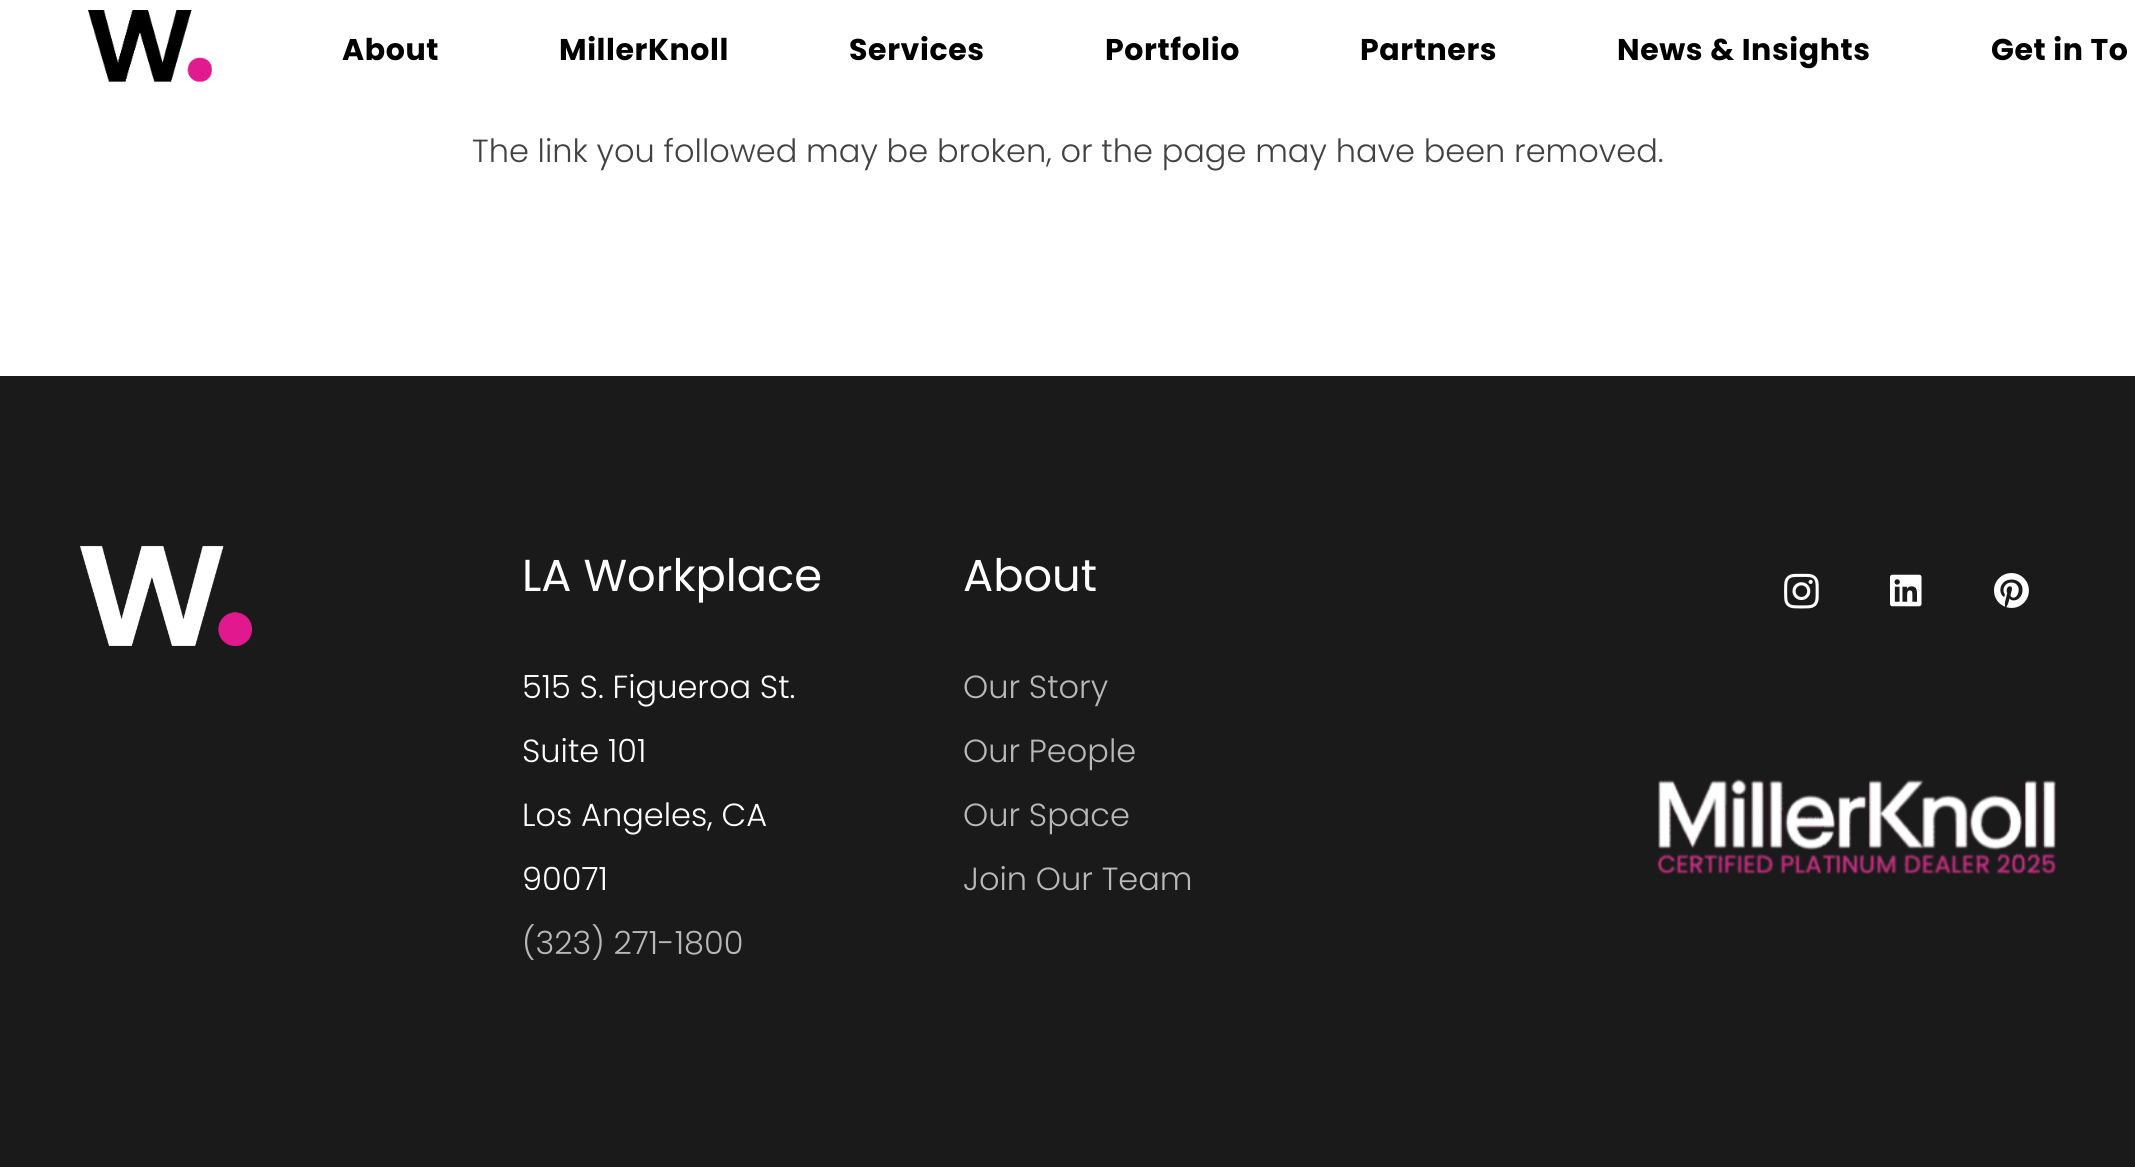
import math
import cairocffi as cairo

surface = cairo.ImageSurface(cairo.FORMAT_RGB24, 2135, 1167)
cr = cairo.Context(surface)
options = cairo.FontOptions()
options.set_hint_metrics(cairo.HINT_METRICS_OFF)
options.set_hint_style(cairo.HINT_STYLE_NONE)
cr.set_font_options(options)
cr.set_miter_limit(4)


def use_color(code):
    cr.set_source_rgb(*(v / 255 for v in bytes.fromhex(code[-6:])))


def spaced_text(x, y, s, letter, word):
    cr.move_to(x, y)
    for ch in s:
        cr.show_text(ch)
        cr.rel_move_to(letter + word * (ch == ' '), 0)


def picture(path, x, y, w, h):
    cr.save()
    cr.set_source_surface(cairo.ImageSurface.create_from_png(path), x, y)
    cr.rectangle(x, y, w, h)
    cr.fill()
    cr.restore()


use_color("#1a1a1a")
cr.paint()
use_color("#ffffff")
cr.rectangle(0, 0, 2135, 376)
cr.fill()
picture("img1.png", 88, 10, 124, 73)
cr.select_font_face("Poppins", cairo.FONT_SLANT_NORMAL, cairo.FONT_WEIGHT_BOLD)
cr.set_font_size(30)
use_color("#000000")
spaced_text(342, 60, "About", 0.6, 0)
spaced_text(559, 60, "MillerKnoll", 0.6, 0)
spaced_text(849, 60, "Services", 0.6, 0)
spaced_text(1105, 60, "Portfolio", 0.6, 0)
spaced_text(1360, 60, "Partners", 0.6, 0)
spaced_text(1617, 60, "News & Insights", 0.6, 0)
spaced_text(1991, 60, "Get in To", 0.6, 0)
cr.select_font_face("Poppins Light")
cr.set_font_size(32)
use_color("#424242")
cr.move_to(472, 162)
cr.show_text("The link you followed may be broken, or the page may have been removed.")
picture("img2.png", 80, 545, 172, 101)
cr.select_font_face("Poppins")
cr.set_font_size(44.75)
use_color("#ffffff")
cr.move_to(522, 591)
cr.show_text("LA Workplace")
cr.select_font_face("Poppins Light")
cr.set_font_size(32)
cr.move_to(522, 698)
cr.show_text("515 S. Figueroa St.")
cr.move_to(522, 762)
cr.show_text("Suite 101")
cr.move_to(522, 826)
cr.show_text("Los Angeles, CA")
cr.move_to(522, 890)
cr.show_text("90071")
use_color("#b8b8b8")
cr.move_to(522, 954)
cr.show_text("(323) 271-1800")
cr.select_font_face("Poppins")
cr.set_font_size(44.75)
use_color("#ffffff")
cr.move_to(963, 591)
cr.show_text("About")
cr.select_font_face("Poppins Light")
cr.set_font_size(32)
use_color("#b8b8b8")
cr.move_to(963, 698)
cr.show_text("Our Story")
cr.move_to(963, 762)
cr.show_text("Our People")
cr.move_to(963, 826)
cr.show_text("Our Space")
cr.move_to(963, 890)
cr.show_text("Join Our Team")
picture("img3.png", 1784, 573, 35, 36)
picture("img4.png", 1890, 574, 32, 33)
picture("img5.png", 1994, 573, 35, 35)
picture("img6.png", 1657, 779, 399, 95)
surface.write_to_png("result.png")
